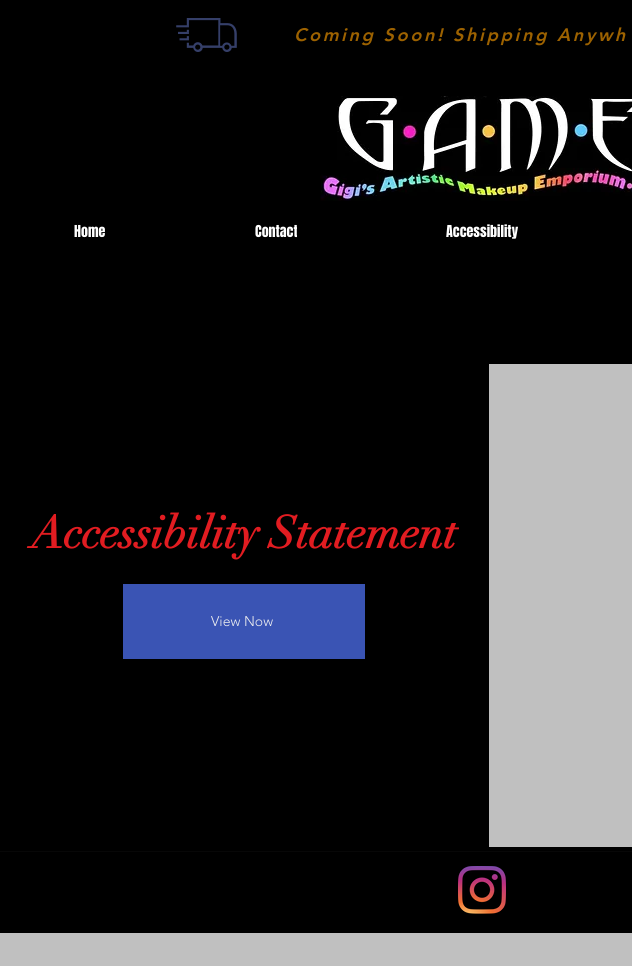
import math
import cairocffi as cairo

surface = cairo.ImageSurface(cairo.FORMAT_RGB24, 632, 966)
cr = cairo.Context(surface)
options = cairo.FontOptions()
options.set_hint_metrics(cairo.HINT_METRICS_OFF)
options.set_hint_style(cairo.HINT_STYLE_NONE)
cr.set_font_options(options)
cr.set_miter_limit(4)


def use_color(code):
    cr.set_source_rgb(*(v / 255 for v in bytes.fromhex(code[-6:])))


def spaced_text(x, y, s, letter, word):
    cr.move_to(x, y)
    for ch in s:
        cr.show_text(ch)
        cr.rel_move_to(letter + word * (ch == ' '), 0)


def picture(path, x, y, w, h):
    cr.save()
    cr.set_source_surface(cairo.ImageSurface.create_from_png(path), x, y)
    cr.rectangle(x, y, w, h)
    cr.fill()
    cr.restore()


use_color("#c0c0c0")
cr.paint()
use_color("#000000")
cr.rectangle(0, 0, 632, 851)
cr.fill()
picture("img1.png", 176, 18, 61, 34)
cr.select_font_face("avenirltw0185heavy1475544 Black", cairo.FONT_SLANT_ITALIC)
cr.set_font_size(18)
use_color("#9d6200")
spaced_text(294, 41, "Coming Soon! Shipping Anywh", 2.7, 0)
picture("img2.png", 320, 96, 312, 105)
cr.select_font_face("Anton")
cr.set_font_size(14)
use_color("#ffffff")
cr.move_to(74, 237)
cr.show_text("Home")
cr.move_to(255, 237)
cr.show_text("Contact")
cr.move_to(446, 237)
cr.show_text("Accessibility")
cr.select_font_face("didot", cairo.FONT_SLANT_NORMAL, cairo.FONT_WEIGHT_BOLD)
cr.set_font_size(45)
use_color("#e21c21")
cr.move_to(31, 548)
cr.show_text("Accessibility Statement")
use_color("#3a54b4")
cr.rectangle(123, 584, 242, 75)
cr.fill()
cr.select_font_face("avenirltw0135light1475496 Light")
cr.set_font_size(14)
use_color("#f0f0f0")
cr.move_to(211, 626)
cr.show_text("View Now")
use_color("#c0c0c0")
cr.rectangle(489, 364, 143, 483)
cr.fill()
use_color("#000000")
cr.rectangle(0, 852, 632, 81)
cr.fill()
use_color("#070707")
cr.rectangle(0, 851, 632, 1)
cr.fill()
picture("img3.png", 458, 866, 48, 48)
surface.write_to_png("result.png")
